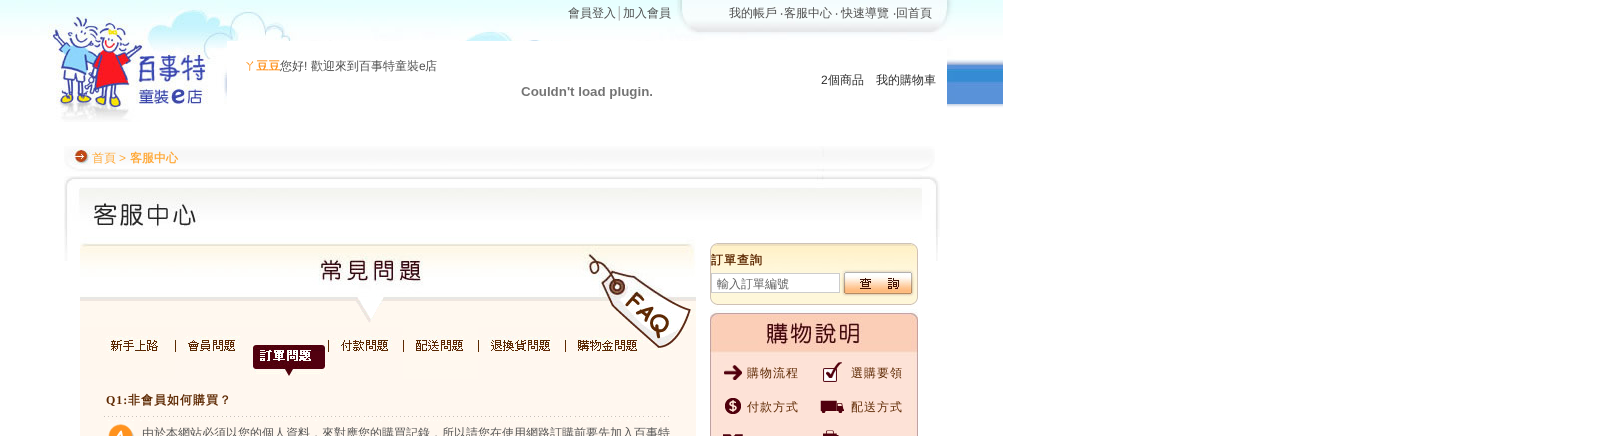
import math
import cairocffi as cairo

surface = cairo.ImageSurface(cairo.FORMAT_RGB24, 1615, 436)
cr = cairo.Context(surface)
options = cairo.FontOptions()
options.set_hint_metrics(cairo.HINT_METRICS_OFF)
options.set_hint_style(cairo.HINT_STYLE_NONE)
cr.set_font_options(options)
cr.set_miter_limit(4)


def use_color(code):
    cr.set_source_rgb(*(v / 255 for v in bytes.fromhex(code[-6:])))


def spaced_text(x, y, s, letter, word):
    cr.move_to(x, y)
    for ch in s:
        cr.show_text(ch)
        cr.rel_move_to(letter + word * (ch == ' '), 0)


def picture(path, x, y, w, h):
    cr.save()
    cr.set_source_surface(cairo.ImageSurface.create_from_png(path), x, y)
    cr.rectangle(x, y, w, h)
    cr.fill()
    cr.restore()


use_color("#ffffff")
cr.paint()
picture("img1.png", 0, 0, 227, 122)
picture("img2.png", 227, 0, 720, 41)
cr.select_font_face("WenQuanYi Zen Hei Medium")
cr.set_font_size(12)
use_color("#4e4e4e")
cr.move_to(568, 17)
cr.show_text("會員登入")
cr.select_font_face("Liberation Sans")
use_color("#999898")
cr.move_to(616, 17)
cr.show_text("│")
cr.select_font_face("WenQuanYi Zen Hei Medium")
use_color("#4e4e4e")
cr.move_to(623, 17)
cr.show_text("加入會員")
cr.move_to(729, 17)
cr.show_text("我的帳戶")
cr.select_font_face("Noto Sans")
cr.move_to(780, 17)
cr.show_text("‧")
cr.select_font_face("WenQuanYi Zen Hei Medium")
cr.move_to(784, 17)
cr.show_text("客服中心")
cr.select_font_face("Noto Sans")
cr.move_to(835, 17)
cr.show_text("‧")
cr.select_font_face("WenQuanYi Zen Hei Medium")
cr.move_to(841, 17)
cr.show_text("快速導覽")
cr.select_font_face("Noto Sans")
cr.move_to(893, 17)
cr.show_text("‧")
cr.select_font_face("WenQuanYi Zen Hei Medium")
cr.move_to(896, 17)
cr.show_text("回首頁")
picture("img3.png", 521, 87, 131, 12)
picture("img4.png", 947, 0, 56, 108)
picture("img5.png", 64, 146, 871, 26)
use_color("#ffa836")
cr.move_to(92, 162)
cr.show_text("首頁")
cr.select_font_face("Liberation Sans")
cr.move_to(119, 162)
cr.show_text(">")
cr.select_font_face("WenQuanYi Zen Hei", cairo.FONT_SLANT_NORMAL, cairo.FONT_WEIGHT_BOLD)
cr.move_to(130, 162)
cr.show_text("客服中心")
picture("img6.png", 64, 176, 16, 61)
picture("img7.png", 80, 174, 842, 55)
picture("img8.png", 922, 176, 18, 61)
picture("img9.png", 64, 237, 4, 24)
picture("img10.png", 936, 237, 2, 24)
picture("img11.png", 80, 237, 616, 60)
picture("img12.png", 80, 297, 616, 30)
picture("img13.png", 80, 327, 95, 52)
picture("img14.png", 175, 327, 75, 52)
picture("img15.png", 250, 327, 78, 52)
picture("img16.png", 328, 327, 75, 52)
picture("img17.png", 403, 327, 75, 52)
picture("img18.png", 478, 327, 87, 52)
picture("img19.png", 565, 327, 85, 52)
picture("img20.png", 650, 327, 46, 52)
use_color("#fff7ef")
cr.rectangle(80, 379, 616, 57)
cr.fill()
picture("img21.png", 104, 416, 566, 5)
cr.select_font_face("Liberation Serif", cairo.FONT_SLANT_NORMAL, cairo.FONT_WEIGHT_BOLD)
use_color("#5d2801")
spaced_text(106, 404, "Q1:", 1, 0)
cr.select_font_face("WenQuanYi Zen Hei", cairo.FONT_SLANT_NORMAL, cairo.FONT_WEIGHT_BOLD)
spaced_text(128, 404, "非會員如何購買？", 1, 0)
picture("img22.png", 108, 423, 26, 13)
cr.select_font_face("WenQuanYi Zen Hei Medium")
use_color("#555555")
cr.move_to(142, 437)
cr.show_text("由於本網站必須以您的個人資料，來對應您的購買記錄，所以請您在使用網路訂購前要先加入百事特")
picture("img23.png", 710, 237, 208, 70)
cr.select_font_face("WenQuanYi Zen Hei", cairo.FONT_SLANT_NORMAL, cairo.FONT_WEIGHT_BOLD)
use_color("#5d2801")
spaced_text(711, 264, "訂單查詢", 1, 0)
use_color("#ffffff")
cr.rectangle(711.5, 273.5, 128, 19)
cr.fill_preserve()
use_color("#cccccc")
cr.set_line_width(1)
cr.stroke()
cr.select_font_face("WenQuanYi Zen Hei Medium")
use_color("#626262")
cr.move_to(717, 288)
cr.show_text("輸入訂單編號")
picture("img24.png", 840, 269, 76, 28)
picture("img25.png", 710, 309, 208, 127)
picture("img26.png", 724, 365, 18, 15)
use_color("#5d2801")
spaced_text(747, 377, "購物流程", 1, 0)
picture("img27.png", 823, 362, 19, 20)
spaced_text(851, 377, "選購要領", 1, 0)
picture("img28.png", 725, 398, 16, 16)
spaced_text(747, 411, "付款方式", 1, 0)
picture("img29.png", 820, 400, 24, 13)
spaced_text(851, 411, "配送方式", 1, 0)
picture("img30.png", 723, 434, 20, 2)
picture("img31.png", 823, 430, 16, 6)
cr.select_font_face("WenQuanYi Zen Hei", cairo.FONT_SLANT_NORMAL, cairo.FONT_WEIGHT_BOLD)
use_color("#fe921e")
cr.move_to(244, 70)
cr.show_text("ㄚ豆豆")
cr.select_font_face("WenQuanYi Zen Hei Medium")
use_color("#4e4e4e")
cr.move_to(280, 70)
cr.show_text("您好")
cr.select_font_face("Liberation Sans")
cr.move_to(304, 70)
cr.show_text("!")
cr.select_font_face("WenQuanYi Zen Hei Medium")
cr.move_to(311, 70)
cr.show_text("歡迎來到百事特童裝")
cr.select_font_face("Liberation Sans")
cr.move_to(419, 70)
cr.show_text("e")
cr.select_font_face("WenQuanYi Zen Hei Medium")
cr.move_to(425, 70)
cr.show_text("店")
cr.select_font_face("Liberation Sans")
use_color("#2e2e2e")
cr.move_to(821, 84)
cr.show_text("2")
cr.select_font_face("WenQuanYi Zen Hei Medium")
cr.move_to(828, 84)
cr.show_text("個商品")
cr.move_to(876, 84)
cr.show_text("我的購物車")
surface.write_to_png("result.png")
